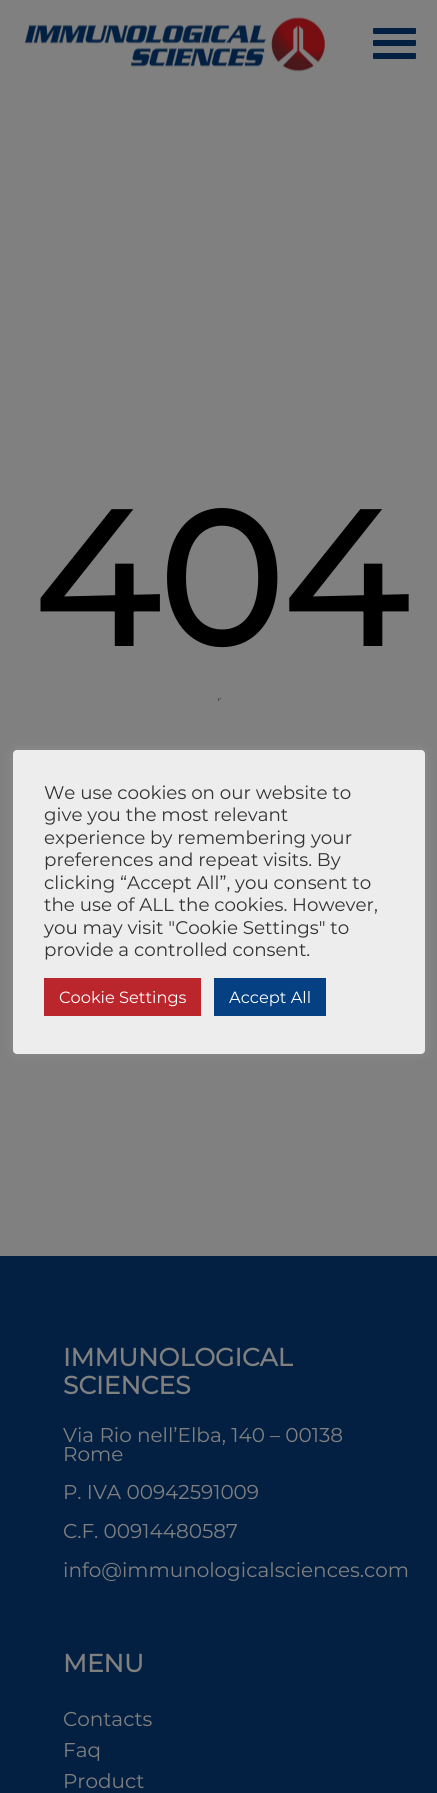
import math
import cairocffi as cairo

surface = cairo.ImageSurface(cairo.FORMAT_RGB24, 437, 1793)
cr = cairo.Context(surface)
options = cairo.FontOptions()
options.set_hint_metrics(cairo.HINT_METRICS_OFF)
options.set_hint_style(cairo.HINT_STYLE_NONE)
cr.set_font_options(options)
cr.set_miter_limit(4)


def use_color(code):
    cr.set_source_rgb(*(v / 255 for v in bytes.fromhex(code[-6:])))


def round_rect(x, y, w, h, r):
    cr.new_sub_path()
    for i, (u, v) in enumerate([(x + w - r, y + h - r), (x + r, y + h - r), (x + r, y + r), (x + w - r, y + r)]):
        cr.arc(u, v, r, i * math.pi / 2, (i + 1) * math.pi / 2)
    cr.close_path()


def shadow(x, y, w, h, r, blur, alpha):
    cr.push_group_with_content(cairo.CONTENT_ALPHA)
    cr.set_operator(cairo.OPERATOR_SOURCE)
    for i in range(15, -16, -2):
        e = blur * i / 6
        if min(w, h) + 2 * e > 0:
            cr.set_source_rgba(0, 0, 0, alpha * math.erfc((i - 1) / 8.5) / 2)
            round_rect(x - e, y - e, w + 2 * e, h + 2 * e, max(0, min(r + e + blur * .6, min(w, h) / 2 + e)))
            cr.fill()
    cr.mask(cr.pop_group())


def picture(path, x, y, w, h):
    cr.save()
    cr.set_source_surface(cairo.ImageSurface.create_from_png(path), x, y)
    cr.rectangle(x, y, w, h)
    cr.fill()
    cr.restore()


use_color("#808080")
cr.paint()
picture("img1.png", 25, 17, 300, 55)
use_color("#032042")
round_rect(373, 40, 43, 6, 1)
cr.fill()
round_rect(373, 28, 43, 6, 1)
cr.fill()
round_rect(373, 53, 43, 6, 1)
cr.fill()
cr.select_font_face("Montserrat", cairo.FONT_SLANT_NORMAL, cairo.FONT_WEIGHT_BOLD)
cr.set_font_size(188)
use_color("#000000")
cr.move_to(33, 646)
cr.show_text("404")
use_color("#505050")
cr.rectangle(218, 698, 3, 1)
cr.fill()
use_color("#777777")
cr.rectangle(219, 698, 1, 3)
cr.fill()
cr.rectangle(218, 699, 3, 1)
cr.fill()
use_color("#505050")
cr.rectangle(218, 698, 1, 3)
cr.fill()
use_color("#acabab")
shadow(13, 749, 412, 304, 4, 6, 0.3)
use_color("#ededed")
round_rect(13, 750, 412, 304, 4)
cr.fill()
cr.select_font_face("Montserrat Thin")
cr.set_font_size(18.3)
use_color("#333333")
cr.move_to(44, 799)
cr.show_text("We use cookies on our website to")
cr.move_to(44, 821)
cr.show_text("give you the most relevant")
cr.move_to(44, 844)
cr.show_text("experience by remembering your")
cr.move_to(44, 866)
cr.show_text("preferences and repeat visits. By")
cr.move_to(44, 889)
cr.show_text("clicking “Accept All”, you consent to")
cr.move_to(44, 911)
cr.show_text("the use of ALL the cookies. However,")
cr.move_to(44, 934)
cr.show_text("you may visit \"Cookie Settings\" to")
cr.move_to(44, 956)
cr.show_text("provide a controlled consent.")
use_color("#bb262d")
cr.rectangle(44, 978, 157, 38)
cr.fill()
cr.set_font_size(16.25)
use_color("#ffffff")
cr.move_to(59, 1003)
cr.show_text("Cookie Settings")
use_color("#054083")
cr.rectangle(214, 978, 112, 38)
cr.fill()
use_color("#ffffff")
cr.move_to(229, 1003)
cr.show_text("Accept All")
use_color("#032042")
cr.rectangle(0, 1256, 437, 537)
cr.fill()
cr.select_font_face("Montserrat", cairo.FONT_SLANT_NORMAL, cairo.FONT_WEIGHT_BOLD)
cr.set_font_size(25)
use_color("#808080")
cr.move_to(63, 1366)
cr.show_text("IMMUNOLOGICAL")
cr.move_to(63, 1394)
cr.show_text("SCIENCES")
cr.select_font_face("Montserrat Thin")
cr.set_font_size(20)
cr.move_to(63, 1442)
cr.show_text("Via Rio nell’Elba, 140 – 00138")
cr.move_to(63, 1461)
cr.show_text("Rome")
cr.move_to(63, 1499)
cr.show_text("P. IVA 00942591009")
cr.move_to(63, 1538)
cr.show_text("C.F. 00914480587")
cr.move_to(63, 1577)
cr.show_text("info@immunologicalsciences.com")
cr.select_font_face("Montserrat", cairo.FONT_SLANT_NORMAL, cairo.FONT_WEIGHT_BOLD)
cr.set_font_size(25)
cr.move_to(63, 1672)
cr.show_text("MENU")
cr.select_font_face("Montserrat Thin")
cr.set_font_size(20)
cr.move_to(63, 1726)
cr.show_text("Contacts")
cr.move_to(63, 1757)
cr.show_text("Faq")
cr.move_to(63, 1788)
cr.show_text("Product")
surface.write_to_png("result.png")
